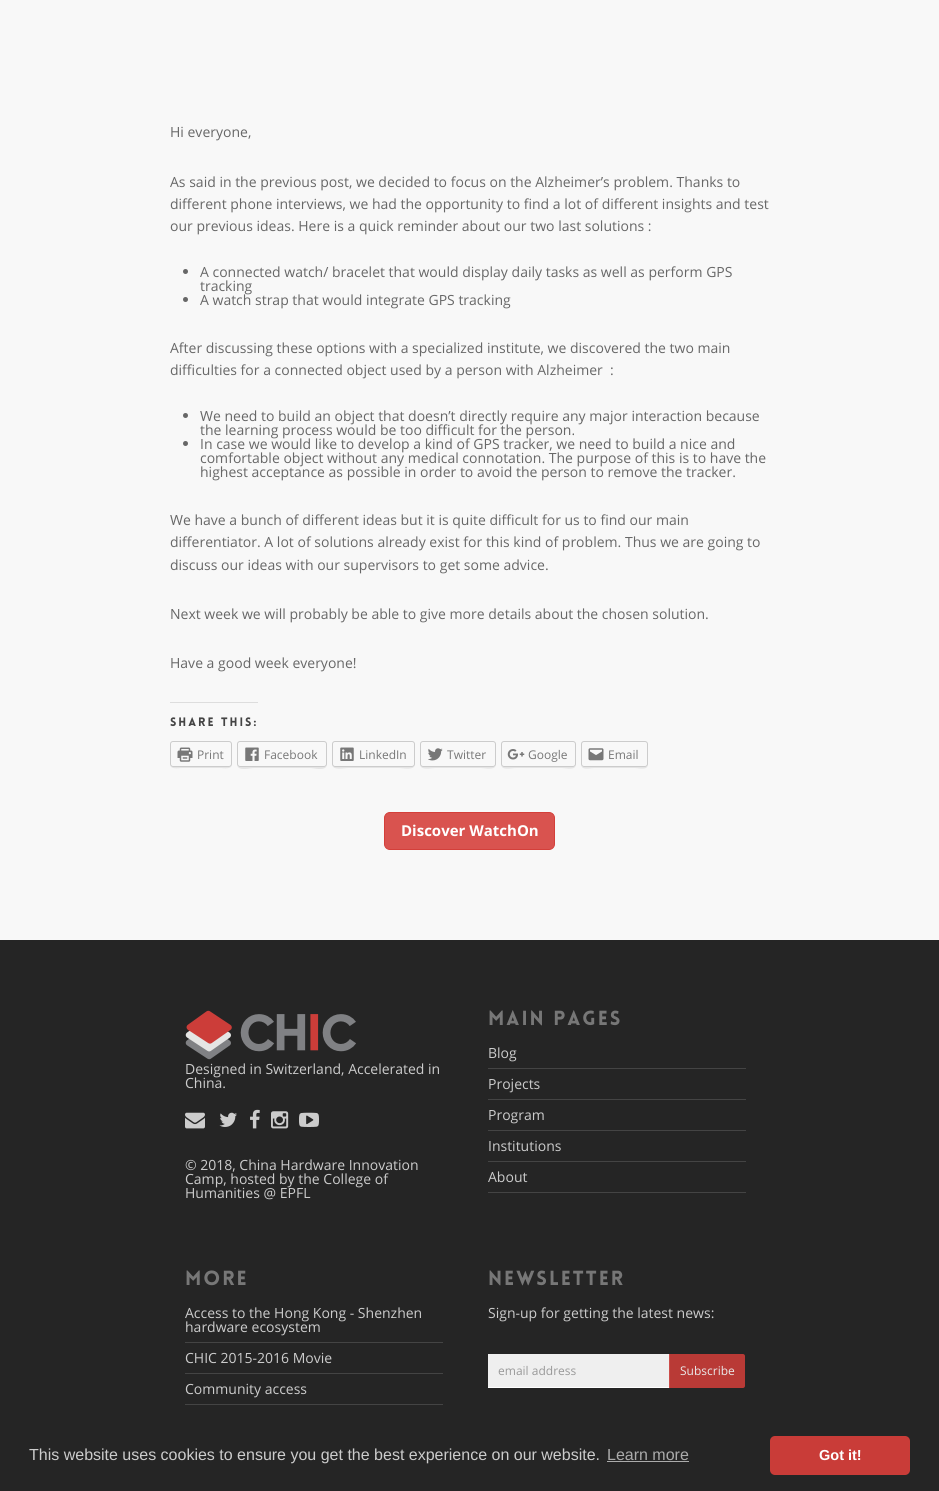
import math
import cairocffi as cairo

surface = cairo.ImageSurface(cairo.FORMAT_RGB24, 939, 1491)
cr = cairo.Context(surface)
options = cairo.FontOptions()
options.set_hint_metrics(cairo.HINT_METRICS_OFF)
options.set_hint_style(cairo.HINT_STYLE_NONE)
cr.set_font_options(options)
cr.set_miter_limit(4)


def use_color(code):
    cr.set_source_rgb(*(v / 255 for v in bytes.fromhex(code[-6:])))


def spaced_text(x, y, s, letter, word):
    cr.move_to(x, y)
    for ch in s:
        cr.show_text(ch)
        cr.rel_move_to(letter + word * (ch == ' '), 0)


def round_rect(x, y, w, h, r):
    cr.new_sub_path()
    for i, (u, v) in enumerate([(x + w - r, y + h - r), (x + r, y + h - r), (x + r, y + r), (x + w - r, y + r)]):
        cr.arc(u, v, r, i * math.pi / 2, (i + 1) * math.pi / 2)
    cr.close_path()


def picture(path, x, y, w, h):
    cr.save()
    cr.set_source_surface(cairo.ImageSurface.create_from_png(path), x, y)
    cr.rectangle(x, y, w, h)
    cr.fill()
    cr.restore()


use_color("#252525")
cr.paint()
use_color("#f8f8f8")
cr.rectangle(0, 0, 939, 940)
cr.fill()
cr.select_font_face("Open Sans")
cr.set_font_size(14)
use_color("#676767")
cr.move_to(170, 137)
cr.show_text("Hi everyone,")
cr.move_to(170, 187)
cr.show_text("As said in the previous post, we decided to focus on the Alzheimer’s problem. Thanks to")
cr.move_to(170, 209)
cr.show_text("different phone interviews, we had the opportunity to find a lot of different insights and test")
cr.move_to(170, 231)
cr.show_text("our previous ideas. Here is a quick reminder about our two last solutions :")
cr.new_path()
cr.arc(185.5, 271.5, 2.5, 0, 2 * math.pi)
cr.fill()
cr.move_to(200, 277)
cr.show_text("A connected watch/ bracelet that would display daily tasks as well as perform GPS")
cr.move_to(200, 291)
cr.show_text("tracking")
cr.new_path()
cr.arc(185.5, 299.5, 2.5, 0, 2 * math.pi)
cr.fill()
cr.move_to(200, 305)
cr.show_text("A watch strap that would integrate GPS tracking")
cr.move_to(170, 353)
cr.show_text("After discussing these options with a specialized institute, we discovered the two main")
cr.move_to(170, 375)
cr.show_text("difficulties for a connected object used by a person with Alzheimer  :")
cr.new_path()
cr.arc(185.5, 415.5, 2.5, 0, 2 * math.pi)
cr.fill()
cr.move_to(200, 421)
cr.show_text("We need to build an object that doesn’t directly require any major interaction because")
cr.move_to(200, 435)
cr.show_text("the learning process would be too difficult for the person.")
cr.new_path()
cr.arc(185.5, 443.5, 2.5, 0, 2 * math.pi)
cr.fill()
cr.move_to(200, 449)
cr.show_text("In case we would like to develop a kind of GPS tracker, we need to build a nice and")
cr.move_to(200, 463)
cr.show_text("comfortable object without any medical connotation. The purpose of this is to have the")
cr.move_to(200, 477)
cr.show_text("highest acceptance as possible in order to avoid the person to remove the tracker.")
cr.move_to(170, 525)
cr.show_text("We have a bunch of different ideas but it is quite difficult for us to find our main")
cr.move_to(170, 547)
cr.show_text("differentiator. A lot of solutions already exist for this kind of problem. Thus we are going to")
cr.move_to(170, 570)
cr.show_text("discuss our ideas with our supervisors to get some advice.")
cr.move_to(170, 619)
cr.show_text("Next week we will probably be able to give more details about the chosen solution.")
cr.move_to(170, 668)
cr.show_text("Have a good week everyone!")
use_color("#dddddd")
cr.rectangle(170, 702, 88, 1)
cr.fill()
cr.select_font_face("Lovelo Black")
cr.set_font_size(12)
use_color("#444444")
spaced_text(170, 726, "SHARE THIS:", 2, 0)
use_color("#e4e4e4")
cr.new_path()
cr.move_to(170, 764)
cr.curve_to(170, 770, 178, 768, 182, 768)
cr.line_to(220, 768)
cr.curve_to(224, 768, 232, 770, 232, 764)
cr.curve_to(232, 766, 231, 767, 229, 767)
cr.line_to(173, 767)
cr.curve_to(171, 767, 170, 766, 170, 764)
cr.close_path()
cr.fill()
use_color("#f8f8f8")
round_rect(170.5, 741.5, 61, 25, 2.5)
cr.fill_preserve()
use_color("#cccccc")
cr.set_line_width(1)
cr.stroke()
picture("img1.png", 177, 747, 16, 15)
cr.select_font_face("Open Sans")
use_color("#777777")
cr.move_to(197, 759)
cr.show_text("Print")
use_color("#e4e4e4")
cr.new_path()
cr.move_to(237, 764)
cr.curve_to(237, 772, 250, 768, 254, 768)
cr.line_to(310, 768)
cr.curve_to(314, 768, 327, 772, 327, 764)
cr.curve_to(327, 766, 326, 767, 324, 767)
cr.line_to(240, 767)
cr.curve_to(238, 767, 237, 766, 237, 764)
cr.close_path()
cr.fill()
use_color("#f8f8f8")
round_rect(237.5, 741.5, 89, 25, 2.5)
cr.fill_preserve()
use_color("#cccccc")
cr.stroke()
picture("img2.png", 245, 747, 14, 14)
use_color("#777777")
cr.move_to(264, 759)
cr.show_text("Facebook")
use_color("#e4e4e4")
cr.new_path()
cr.move_to(332, 764)
cr.curve_to(332, 771, 344, 768, 348, 768)
cr.line_to(399, 768)
cr.curve_to(403, 768, 415, 771, 415, 764)
cr.curve_to(415, 766, 414, 767, 412, 767)
cr.line_to(335, 767)
cr.curve_to(333, 767, 332, 766, 332, 764)
cr.close_path()
cr.fill()
use_color("#f8f8f8")
round_rect(332.5, 741.5, 82, 25, 2.5)
cr.fill_preserve()
use_color("#cccccc")
cr.stroke()
picture("img3.png", 340, 747, 14, 14)
use_color("#777777")
cr.move_to(359, 759)
cr.show_text("LinkedIn")
use_color("#e4e4e4")
cr.new_path()
cr.move_to(420, 764)
cr.curve_to(420, 771, 431, 768, 435, 768)
cr.line_to(481, 768)
cr.curve_to(485, 768, 496, 771, 496, 764)
cr.curve_to(496, 766, 495, 767, 493, 767)
cr.line_to(423, 767)
cr.curve_to(421, 767, 420, 766, 420, 764)
cr.close_path()
cr.fill()
use_color("#f8f8f8")
round_rect(420.5, 741.5, 75, 25, 2.5)
cr.fill_preserve()
use_color("#cccccc")
cr.stroke()
picture("img4.png", 428, 748, 15, 13)
use_color("#777777")
cr.move_to(447, 759)
cr.show_text("Twitter")
use_color("#e4e4e4")
cr.new_path()
cr.move_to(501, 764)
cr.curve_to(501, 771, 511, 768, 516, 768)
cr.line_to(562, 768)
cr.curve_to(566, 768, 576, 771, 576, 764)
cr.curve_to(576, 766, 575, 767, 573, 767)
cr.line_to(504, 767)
cr.curve_to(502, 767, 501, 766, 501, 764)
cr.close_path()
cr.fill()
use_color("#f8f8f8")
round_rect(501.5, 741.5, 74, 25, 2.5)
cr.fill_preserve()
use_color("#cccccc")
cr.stroke()
picture("img5.png", 507, 749, 18, 11)
use_color("#777777")
cr.move_to(528, 759)
cr.show_text("Google")
use_color("#e4e4e4")
cr.new_path()
cr.move_to(581, 764)
cr.curve_to(581, 771, 590, 768, 594, 768)
cr.line_to(635, 768)
cr.curve_to(639, 768, 648, 771, 648, 764)
cr.curve_to(648, 766, 647, 767, 645, 767)
cr.line_to(584, 767)
cr.curve_to(582, 767, 581, 766, 581, 764)
cr.close_path()
cr.fill()
use_color("#f8f8f8")
round_rect(581.5, 741.5, 66, 25, 2.5)
cr.fill_preserve()
use_color("#cccccc")
cr.stroke()
picture("img6.png", 588, 748, 16, 13)
use_color("#777777")
cr.move_to(608, 759)
cr.show_text("Email")
use_color("#d9534f")
round_rect(384.5, 812.5, 170, 37, 5.5)
cr.fill_preserve()
use_color("#d43f3a")
cr.stroke()
cr.select_font_face("Open Sans", cairo.FONT_SLANT_NORMAL, cairo.FONT_WEIGHT_BOLD)
cr.set_font_size(15)
use_color("#ffffff")
cr.move_to(401, 836)
cr.show_text("Discover WatchOn")
picture("img7.png", 185, 1010, 171, 50)
cr.select_font_face("Open Sans")
cr.set_font_size(14)
use_color("#cccccc")
cr.move_to(185, 1074)
cr.show_text("Designed in Switzerland, Accelerated in")
cr.move_to(185, 1088)
cr.show_text("China.")
picture("img8.png", 185, 1112, 20, 17)
picture("img9.png", 219, 1112, 18, 15)
picture("img10.png", 250, 1109, 10, 20)
picture("img11.png", 271, 1111, 18, 18)
picture("img12.png", 299, 1112, 20, 15)
cr.move_to(185, 1170)
cr.show_text("© 2018, China Hardware Innovation")
cr.move_to(185, 1184)
cr.show_text("Camp, hosted by the College of")
cr.move_to(185, 1198)
cr.show_text("Humanities @ EPFL")
cr.select_font_face("Lovelo Black")
cr.set_font_size(20)
use_color("#777777")
spaced_text(488, 1025, "MAIN PAGES", 2, 0)
use_color("#444444")
cr.rectangle(488, 1068, 258, 1)
cr.fill()
cr.select_font_face("Open Sans")
cr.set_font_size(14)
use_color("#cccccc")
cr.move_to(488, 1058)
cr.show_text("Blog")
use_color("#444444")
cr.rectangle(488, 1099, 258, 1)
cr.fill()
use_color("#cccccc")
cr.move_to(488, 1089)
cr.show_text("Projects")
use_color("#444444")
cr.rectangle(488, 1130, 258, 1)
cr.fill()
use_color("#cccccc")
cr.move_to(488, 1120)
cr.show_text("Program")
use_color("#444444")
cr.rectangle(488, 1161, 258, 1)
cr.fill()
use_color("#cccccc")
cr.move_to(488, 1151)
cr.show_text("Institutions")
use_color("#444444")
cr.rectangle(488, 1192, 258, 1)
cr.fill()
use_color("#cccccc")
cr.move_to(488, 1182)
cr.show_text("About")
cr.select_font_face("Lovelo Black")
cr.set_font_size(20)
use_color("#777777")
spaced_text(185, 1285, "MORE", 2, 0)
use_color("#444444")
cr.rectangle(185, 1342, 258, 1)
cr.fill()
cr.select_font_face("Open Sans")
cr.set_font_size(14)
use_color("#cccccc")
cr.move_to(185, 1318)
cr.show_text("Access to the Hong Kong - Shenzhen")
cr.move_to(185, 1332)
cr.show_text("hardware ecosystem")
use_color("#444444")
cr.rectangle(185, 1373, 258, 1)
cr.fill()
use_color("#cccccc")
cr.move_to(185, 1363)
cr.show_text("CHIC 2015-2016 Movie")
use_color("#444444")
cr.rectangle(185, 1404, 258, 1)
cr.fill()
use_color("#cccccc")
cr.move_to(185, 1394)
cr.show_text("Community access")
cr.select_font_face("Lovelo Black")
cr.set_font_size(20)
use_color("#777777")
spaced_text(488, 1285, "NEWSLETTER", 2, 0)
cr.select_font_face("Open Sans")
cr.set_font_size(14)
use_color("#cccccc")
cr.move_to(488, 1318)
cr.show_text("Sign-up for getting the latest news:")
use_color("#efefef")
cr.rectangle(488, 1354, 182, 33)
cr.fill()
use_color("#ffffff")
cr.rectangle(488, 1387, 182, 1)
cr.fill()
cr.set_font_size(12)
use_color("#999999")
cr.move_to(498, 1375)
cr.show_text("email address")
cr.set_source_rgba(0.788, 0.235, 0.22, 0.9)
cr.new_path()
cr.move_to(669, 1354)
cr.line_to(743, 1354)
cr.curve_to(744, 1354, 745, 1355, 745, 1356)
cr.line_to(745, 1386)
cr.curve_to(745, 1387, 744, 1388, 743, 1388)
cr.line_to(669, 1388)
cr.close_path()
cr.fill()
use_color("#e9e9e9")
cr.move_to(680, 1375)
cr.show_text("Subscribe")
cr.select_font_face("Liberation Sans")
cr.set_font_size(16)
use_color("#cccccc")
cr.move_to(29, 1460)
cr.show_text("This website uses cookies to ensure you get the best experience on our website.")
use_color("#ababab")
cr.move_to(607, 1460)
cr.show_text("Learn more")
cr.rectangle(607, 1461, 82, 1)
cr.fill()
use_color("#c93c38")
round_rect(770, 1436, 140, 39, 5)
cr.fill()
cr.select_font_face("Liberation Sans", cairo.FONT_SLANT_NORMAL, cairo.FONT_WEIGHT_BOLD)
cr.set_font_size(14.5)
use_color("#ffffff")
cr.move_to(819, 1460)
cr.show_text("Got it!")
surface.write_to_png("result.png")
